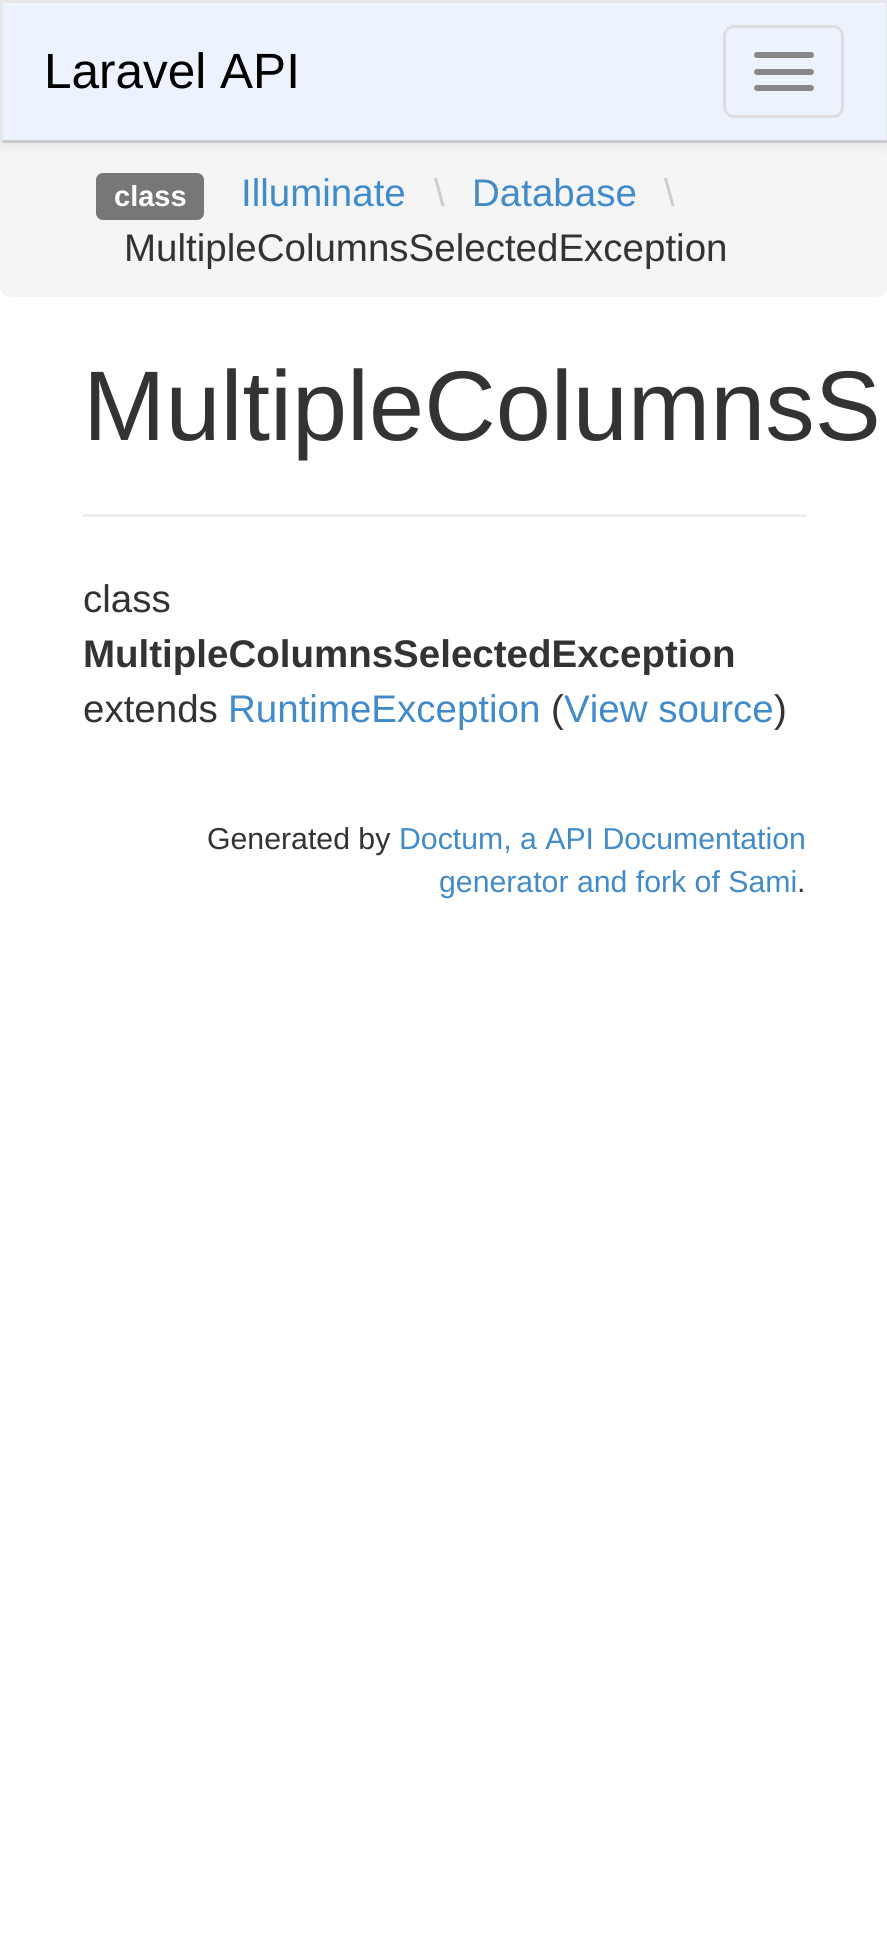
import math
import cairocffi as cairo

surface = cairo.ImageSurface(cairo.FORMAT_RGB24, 887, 1960)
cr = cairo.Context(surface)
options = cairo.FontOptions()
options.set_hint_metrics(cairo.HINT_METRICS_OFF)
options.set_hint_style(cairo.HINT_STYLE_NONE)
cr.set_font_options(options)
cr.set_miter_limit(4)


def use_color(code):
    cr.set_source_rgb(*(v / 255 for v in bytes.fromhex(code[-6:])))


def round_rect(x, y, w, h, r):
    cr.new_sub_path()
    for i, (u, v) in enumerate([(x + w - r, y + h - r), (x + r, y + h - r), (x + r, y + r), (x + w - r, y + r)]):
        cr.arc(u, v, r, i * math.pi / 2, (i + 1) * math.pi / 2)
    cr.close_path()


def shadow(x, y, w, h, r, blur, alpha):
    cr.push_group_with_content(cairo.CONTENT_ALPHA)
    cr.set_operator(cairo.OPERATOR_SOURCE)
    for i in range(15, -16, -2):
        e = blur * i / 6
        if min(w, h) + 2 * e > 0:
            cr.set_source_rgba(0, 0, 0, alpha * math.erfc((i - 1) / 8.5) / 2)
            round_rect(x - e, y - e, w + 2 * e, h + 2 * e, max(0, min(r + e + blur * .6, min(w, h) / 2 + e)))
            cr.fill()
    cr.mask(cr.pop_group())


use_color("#ffffff")
cr.paint()
use_color("#f5f5f5")
cr.new_path()
cr.move_to(0, 143)
cr.line_to(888, 143)
cr.line_to(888, 286)
cr.curve_to(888, 292, 883, 297, 877, 297)
cr.line_to(11, 297)
cr.curve_to(5, 297, 0, 292, 0, 286)
cr.close_path()
cr.fill()
use_color("#000000")
shadow(0, 3, 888, 143, 0, 7, 0.07)
use_color("#edf3fe")
cr.rectangle(3, 6, 883, 134)
cr.fill()
use_color("#f0f5fe")
cr.rectangle(3, 3, 883, 3)
cr.fill()
use_color("#e7e7e7")
cr.rectangle(0, 0, 887, 3)
cr.fill()
cr.rectangle(886, 0, 1, 143)
cr.fill()
use_color("#cccccc")
cr.rectangle(0, 140, 887, 3)
cr.fill()
use_color("#e7e7e7")
cr.rectangle(0, 0, 3, 143)
cr.fill()
cr.select_font_face("Liberation Sans")
cr.set_font_size(49.5)
use_color("#000000")
cr.move_to(44, 88)
cr.show_text("Laravel API")
round_rect(724.5, 26.5, 118, 90, 9.5)
use_color("#dddddd")
cr.set_line_width(3)
cr.stroke()
use_color("#888888")
round_rect(754, 52, 60, 6, 3)
cr.fill()
round_rect(754, 69, 60, 6, 3)
cr.fill()
round_rect(754, 85, 60, 6, 3)
cr.fill()
use_color("#777777")
round_rect(96, 173, 108, 47, 7)
cr.fill()
cr.select_font_face("Liberation Sans", cairo.FONT_SLANT_NORMAL, cairo.FONT_WEIGHT_BOLD)
cr.set_font_size(29)
use_color("#ffffff")
cr.move_to(114, 206)
cr.show_text("class")
cr.select_font_face("Liberation Sans")
cr.set_font_size(38.5)
use_color("#428bca")
cr.move_to(241, 206)
cr.show_text("Illuminate")
use_color("#cccccc")
cr.move_to(434, 206)
cr.show_text("\\")
use_color("#428bca")
cr.move_to(472, 206)
cr.show_text("Database")
use_color("#cccccc")
cr.move_to(664, 206)
cr.show_text("\\")
use_color("#333333")
cr.move_to(124, 261)
cr.show_text("MultipleColumnsSelectedException")
use_color("#eeeeee")
cr.rectangle(83, 514, 723, 3)
cr.fill()
cr.set_font_size(99)
use_color("#333333")
cr.move_to(83, 440)
cr.show_text("MultipleColumnsS")
cr.set_font_size(38.5)
cr.move_to(83, 612)
cr.show_text("class")
cr.select_font_face("Liberation Sans", cairo.FONT_SLANT_NORMAL, cairo.FONT_WEIGHT_BOLD)
cr.move_to(83, 667)
cr.show_text("MultipleColumnsSelectedException")
cr.select_font_face("Liberation Sans")
cr.move_to(83, 722)
cr.show_text("extends")
use_color("#428bca")
cr.move_to(228, 722)
cr.show_text("RuntimeException")
use_color("#333333")
cr.move_to(551, 722)
cr.show_text("(")
use_color("#428bca")
cr.move_to(564, 722)
cr.show_text("View source")
use_color("#333333")
cr.move_to(774, 722)
cr.show_text(")")
cr.set_font_size(30.25)
cr.move_to(207, 849)
cr.show_text("Generated by")
use_color("#428bca")
cr.move_to(399, 849)
cr.show_text("Doctum, a API Documentation")
cr.move_to(439, 892)
cr.show_text("generator and fork of Sami")
use_color("#333333")
cr.move_to(797, 892)
cr.show_text(".")
surface.write_to_png("result.png")
